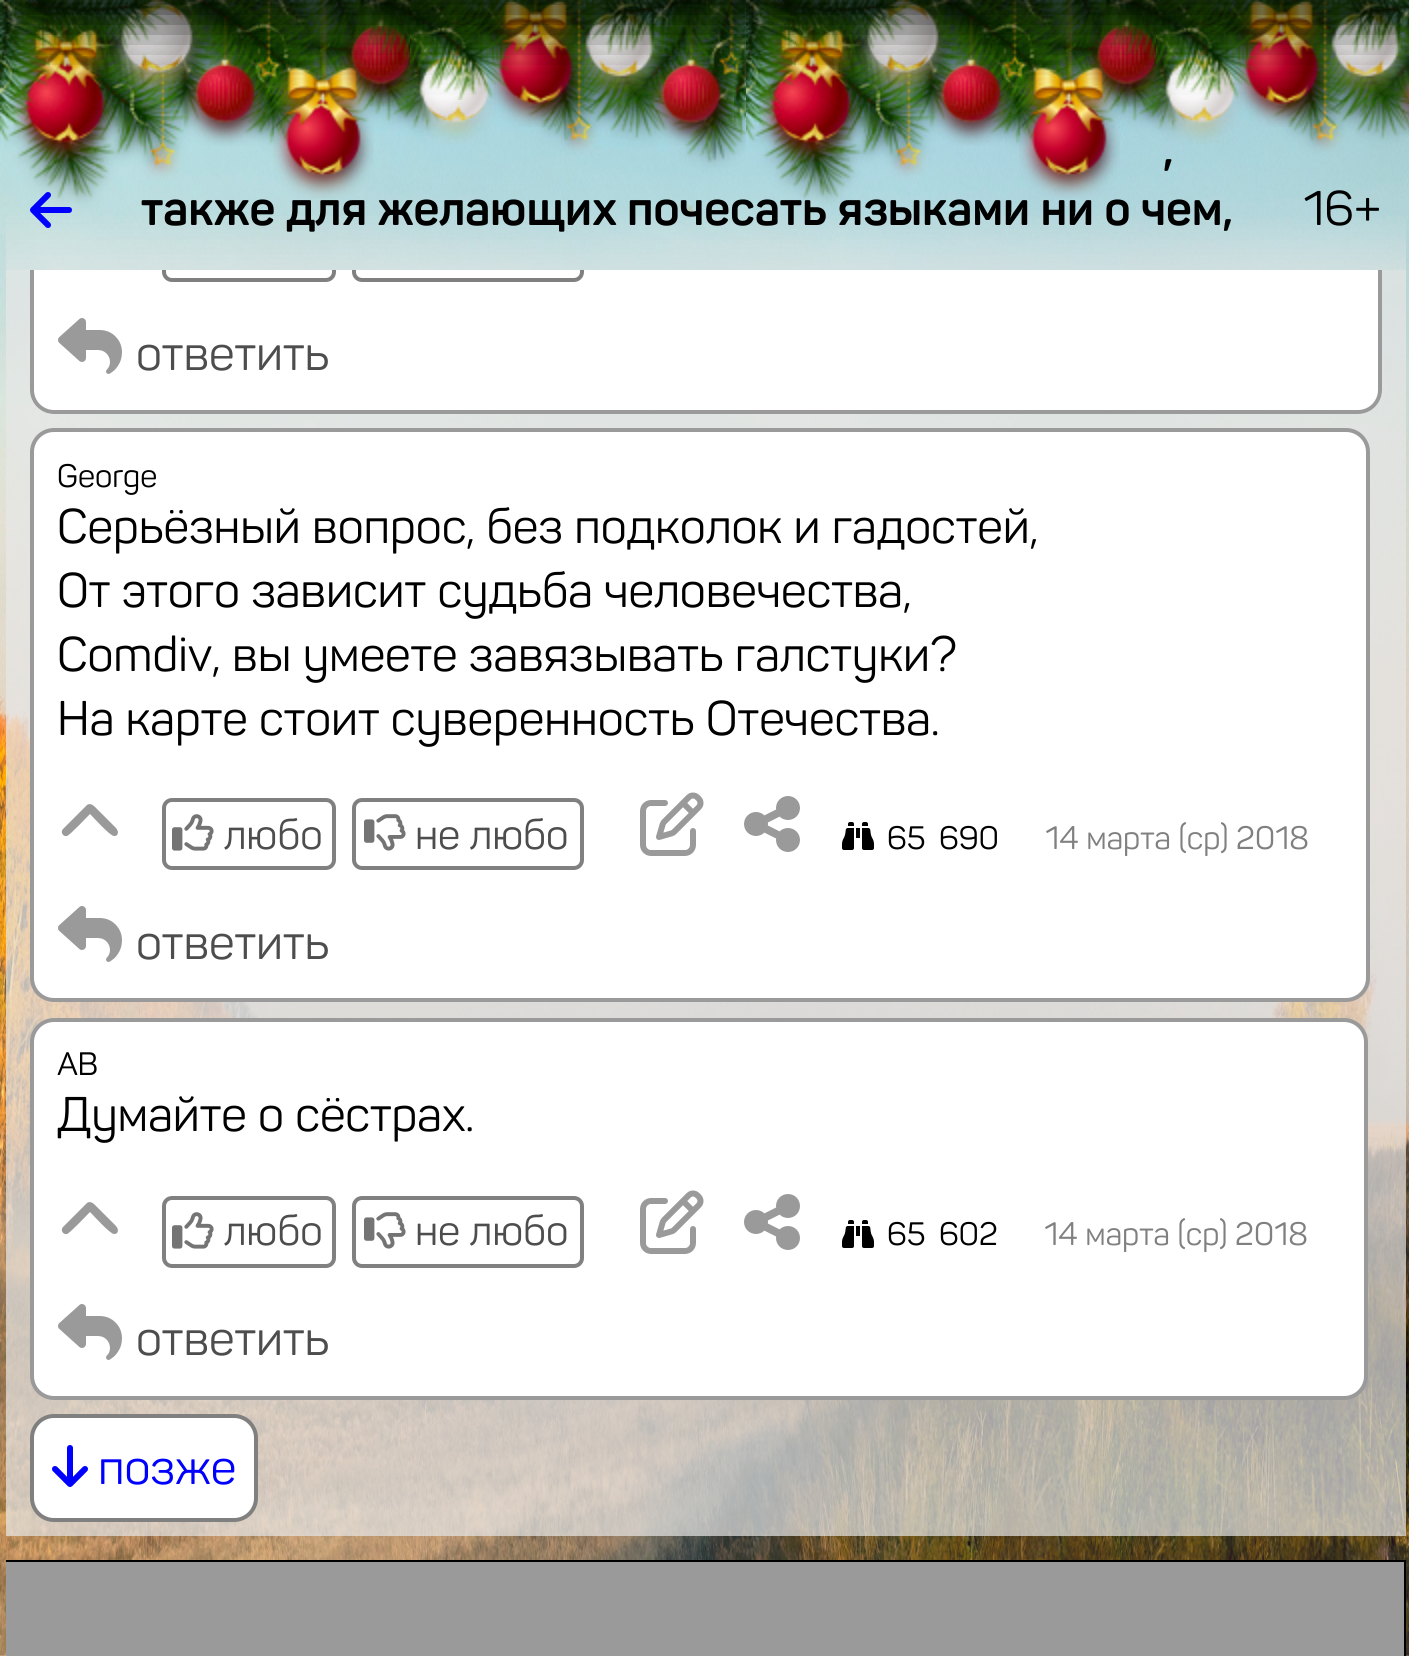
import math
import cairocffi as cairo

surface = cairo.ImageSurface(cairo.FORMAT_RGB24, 1409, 1656)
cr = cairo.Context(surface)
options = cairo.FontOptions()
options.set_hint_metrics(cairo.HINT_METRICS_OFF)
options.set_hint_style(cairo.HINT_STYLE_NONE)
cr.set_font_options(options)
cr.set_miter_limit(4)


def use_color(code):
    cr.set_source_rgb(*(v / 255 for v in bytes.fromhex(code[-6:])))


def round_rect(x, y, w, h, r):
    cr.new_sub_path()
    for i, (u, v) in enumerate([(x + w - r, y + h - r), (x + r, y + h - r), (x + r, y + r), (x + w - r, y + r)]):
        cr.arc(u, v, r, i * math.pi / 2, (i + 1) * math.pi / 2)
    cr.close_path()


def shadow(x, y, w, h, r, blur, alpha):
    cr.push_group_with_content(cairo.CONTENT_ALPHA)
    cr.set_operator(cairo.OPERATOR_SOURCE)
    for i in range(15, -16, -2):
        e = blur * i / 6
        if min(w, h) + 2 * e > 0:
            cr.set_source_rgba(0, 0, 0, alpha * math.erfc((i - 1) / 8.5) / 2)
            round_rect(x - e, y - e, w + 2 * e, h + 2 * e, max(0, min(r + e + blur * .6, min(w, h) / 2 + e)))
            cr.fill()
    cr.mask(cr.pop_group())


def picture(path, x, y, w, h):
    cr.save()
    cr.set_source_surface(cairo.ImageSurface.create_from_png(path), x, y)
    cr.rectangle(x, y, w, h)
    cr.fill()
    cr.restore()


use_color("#ffffff")
cr.paint()
picture("img1.png", 0, 0, 1409, 1656)
picture("img2.png", 0, 0, 1409, 213)
picture("img4.png", 13, 0, 104, 163)
picture("img3.png", 0, 0, 50, 142)
picture("img6.png", 108, 0, 98, 94)
picture("img5.png", 50, 0, 122, 54)
picture("img7.png", 273, 0, 101, 199)
picture("img8.png", 339, 0, 82, 107)
picture("img14.png", 408, 12, 88, 132)
picture("img9.png", 354, 0, 56, 62)
picture("img11.png", 487, 0, 97, 127)
picture("img10.png", 410, 0, 100, 100)
picture("img12.png", 574, 0, 92, 98)
picture("img13.png", 184, 18, 81, 128)
picture("img17.png", 650, 20, 82, 126)
picture("img15.png", 578, 0, 156, 56)
picture("img16.png", 734, 0, 12, 138)
picture("img19.png", 759, 0, 103, 163)
picture("img18.png", 746, 0, 50, 142)
picture("img21.png", 854, 0, 98, 94)
picture("img20.png", 796, 0, 122, 54)
picture("img22.png", 1019, 0, 101, 199)
picture("img23.png", 1085, 0, 82, 107)
picture("img29.png", 1154, 12, 88, 132)
picture("img24.png", 1100, 0, 56, 62)
picture("img26.png", 1233, 0, 97, 127)
picture("img25.png", 1156, 0, 100, 100)
picture("img27.png", 1320, 0, 89, 98)
picture("img28.png", 930, 18, 81, 128)
picture("img30.png", 1324, 0, 85, 56)
picture("img31.png", 1396, 72, 13, 63)
gradient = cairo.LinearGradient(706, 300, 706, 120)
gradient.add_color_stop_rgba(0, 0.906, 0.906, 0.906, 0.7)
gradient.add_color_stop_rgba(0.5, 0.906, 0.906, 0.906, 0)
cr.set_source(gradient)
cr.rectangle(6, 216, 1400, 54)
cr.fill()
picture("img32.png", 30, 192, 42, 36)
cr.select_font_face("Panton")
cr.set_font_size(48)
use_color("#000000")
cr.move_to(1303, 225)
cr.show_text("16+")
cr.set_source_rgba(0.906, 0.906, 0.906, 0.7)
cr.rectangle(6, 270, 1400, 1266)
cr.fill()
use_color("#ffffff")
cr.new_path()
cr.move_to(30, 270)
cr.line_to(1382, 270)
cr.line_to(1382, 390)
cr.curve_to(1382, 403.5, 1371.5, 414, 1358, 414)
cr.line_to(54, 414)
cr.curve_to(40.5, 414, 30, 403.5, 30, 390)
cr.close_path()
cr.fill()
cr.save()
cr.rectangle(6, 270, 1400, 1266)
cr.clip()
round_rect(32, -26, 1348, 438, 22)
use_color("#9a9a9a")
cr.set_line_width(4)
cr.stroke()
cr.restore()
use_color("#000000")
shadow(0, -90, 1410, 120, 0, 30, 0.75)
cr.select_font_face("Panton", cairo.FONT_SLANT_NORMAL, cairo.FONT_WEIGHT_BOLD)
use_color("#000000")
cr.move_to(1163, 165)
cr.show_text(",")
cr.move_to(141, 225)
cr.show_text("также для желающих почесать языками ни о чем,")
cr.save()
cr.rectangle(6, 270, 1400, 1266)
cr.clip()
round_rect(164, 212, 170, 68, 8)
use_color("#808080")
cr.set_line_width(4)
cr.stroke()
round_rect(354, 212, 228, 68, 8)
cr.stroke()
cr.restore()
picture("img33.png", 58, 318, 64, 56)
cr.select_font_face("Panton")
use_color("#4d4d4d")
cr.move_to(136, 370)
cr.show_text("ответить")
use_color("#ffffff")
round_rect(32, 430, 1336, 570, 22)
cr.fill_preserve()
use_color("#9a9a9a")
cr.set_line_width(4)
cr.stroke()
cr.set_font_size(32)
use_color("#000000")
cr.move_to(57, 487)
cr.show_text("George")
cr.set_font_size(48)
cr.move_to(57, 543)
cr.show_text("Серьёзный вопрос, без подколок и гадостей,")
cr.move_to(57, 607)
cr.show_text("От этого зависит судьба человечества,")
cr.move_to(57, 671)
cr.show_text("Сomdiv, вы умеете завязывать галстуки?")
cr.move_to(57, 735)
cr.show_text("На карте стоит суверенность Отечества.")
use_color("#9a9a9a")
cr.new_path()
cr.move_to(87, 805)
cr.curve_to(91, 802, 95, 807, 97, 809)
cr.line_to(113, 825)
cr.curve_to(115, 827, 120, 831, 117, 835)
cr.curve_to(116, 836, 115, 836, 114, 836)
cr.curve_to(110, 836, 93, 817, 90, 814)
cr.curve_to(87, 817, 70, 835, 67, 836)
cr.curve_to(63, 837, 60, 832, 63, 829)
cr.close_path()
cr.fill()
round_rect(164, 800, 170, 68, 8)
use_color("#808080")
cr.stroke()
picture("img34.png", 172, 814, 42, 37)
cr.set_font_size(41.5)
use_color("#4d4d4d")
cr.move_to(224, 849)
cr.show_text("любо")
round_rect(354, 800, 228, 68, 8)
use_color("#808080")
cr.stroke()
picture("img35.png", 364, 814, 42, 37)
use_color("#4d4d4d")
cr.move_to(415, 849)
cr.show_text("не любо")
picture("img36.png", 640, 792, 64, 64)
picture("img37.png", 744, 796, 56, 56)
picture("img38.png", 842, 822, 32, 28)
cr.set_font_size(32)
use_color("#000000")
cr.move_to(887, 849)
cr.show_text("65")
cr.move_to(939, 849)
cr.show_text("690")
use_color("#808080")
cr.move_to(1045, 849)
cr.show_text("14 марта (ср) 2018")
picture("img33.png", 58, 906, 64, 56)
cr.set_font_size(48)
use_color("#4d4d4d")
cr.move_to(136, 959)
cr.show_text("ответить")
use_color("#ffffff")
round_rect(32, 1020, 1334, 378, 22)
cr.fill_preserve()
use_color("#9a9a9a")
cr.stroke()
cr.set_font_size(32)
use_color("#000000")
cr.move_to(57, 1075)
cr.show_text("АВ")
cr.set_font_size(48)
cr.move_to(57, 1131)
cr.show_text("Думайте о сёстрах.")
use_color("#9a9a9a")
cr.new_path()
cr.move_to(87, 1203)
cr.curve_to(91, 1200, 95, 1205, 97, 1207)
cr.line_to(113, 1223)
cr.curve_to(115, 1225, 120, 1229, 117, 1233)
cr.curve_to(116, 1234, 115, 1234, 114, 1234)
cr.curve_to(110, 1234, 93, 1215, 90, 1212)
cr.curve_to(87, 1215, 70, 1233, 67, 1234)
cr.curve_to(63, 1235, 60, 1230, 63, 1227)
cr.close_path()
cr.fill()
round_rect(164, 1198, 170, 68, 8)
use_color("#808080")
cr.stroke()
picture("img34.png", 172, 1212, 42, 37)
cr.set_font_size(41.5)
use_color("#4d4d4d")
cr.move_to(224, 1245)
cr.show_text("любо")
round_rect(354, 1198, 228, 68, 8)
use_color("#808080")
cr.stroke()
picture("img35.png", 364, 1212, 42, 37)
use_color("#4d4d4d")
cr.move_to(415, 1245)
cr.show_text("не любо")
picture("img36.png", 640, 1190, 64, 64)
picture("img37.png", 744, 1194, 56, 56)
picture("img38.png", 842, 1220, 32, 28)
cr.set_font_size(32)
use_color("#000000")
cr.move_to(887, 1245)
cr.show_text("65")
cr.move_to(939, 1245)
cr.show_text("602")
use_color("#808080")
cr.move_to(1044, 1245)
cr.show_text("14 марта (ср) 2018")
picture("img33.png", 58, 1304, 64, 56)
cr.set_font_size(48)
use_color("#4d4d4d")
cr.move_to(136, 1355)
cr.show_text("ответить")
use_color("#ffffff")
round_rect(32, 1416, 224, 104, 22)
cr.fill_preserve()
use_color("#808080")
cr.stroke()
picture("img39.png", 52, 1445, 36, 42)
use_color("#0000ff")
cr.move_to(98, 1484)
cr.show_text("позже")
use_color("#000000")
cr.rectangle(6, 1560, 1400, 2)
cr.fill()
use_color("#9a9a9a")
cr.rectangle(6, 1562, 1398, 94)
cr.fill()
use_color("#000000")
cr.rectangle(1404, 1562, 2, 94)
cr.fill()
surface.write_to_png("result.png")
